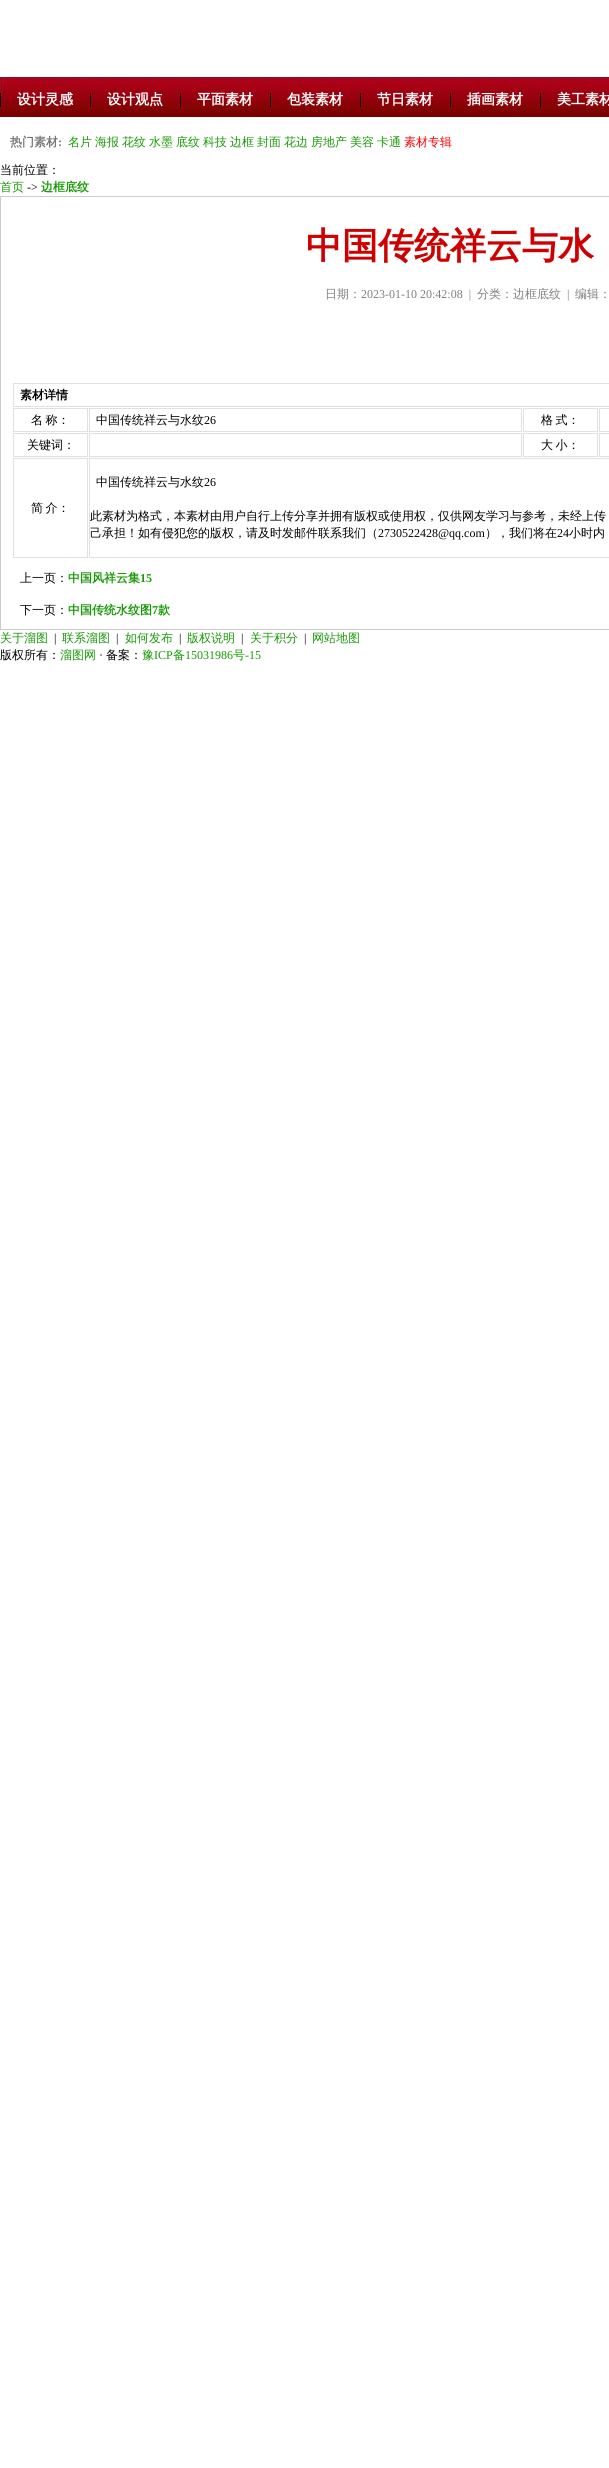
import math
import cairocffi as cairo

surface = cairo.ImageSurface(cairo.FORMAT_RGB24, 609, 2468)
cr = cairo.Context(surface)
options = cairo.FontOptions()
options.set_hint_metrics(cairo.HINT_METRICS_OFF)
options.set_hint_style(cairo.HINT_STYLE_NONE)
cr.set_font_options(options)
cr.set_miter_limit(4)


def use_color(code):
    cr.set_source_rgb(*(v / 255 for v in bytes.fromhex(code[-6:])))


def spaced_text(x, y, s, letter, word):
    cr.move_to(x, y)
    for ch in s:
        cr.show_text(ch)
        cr.rel_move_to(letter + word * (ch == ' '), 0)


def picture(path, x, y, w, h):
    cr.save()
    cr.set_source_surface(cairo.ImageSurface.create_from_png(path), x, y)
    cr.rectangle(x, y, w, h)
    cr.fill()
    cr.restore()


use_color("#ffffff")
cr.paint()
picture("img1.png", 0, 77, 609, 40)
use_color("#000000")
cr.rectangle(0, 93, 1, 14)
cr.fill()
cr.select_font_face("WenQuanYi Zen Hei", cairo.FONT_SLANT_NORMAL, cairo.FONT_WEIGHT_BOLD)
cr.set_font_size(14)
use_color("#ffffff")
cr.move_to(17, 104)
cr.show_text("设计灵感")
use_color("#000000")
cr.rectangle(90, 93, 1, 14)
cr.fill()
use_color("#ffffff")
cr.move_to(107, 104)
cr.show_text("设计观点")
use_color("#000000")
cr.rectangle(180, 93, 1, 14)
cr.fill()
use_color("#ffffff")
cr.move_to(197, 104)
cr.show_text("平面素材")
use_color("#000000")
cr.rectangle(270, 93, 1, 14)
cr.fill()
use_color("#ffffff")
cr.move_to(287, 104)
cr.show_text("包装素材")
use_color("#000000")
cr.rectangle(360, 93, 1, 14)
cr.fill()
use_color("#ffffff")
cr.move_to(377, 104)
cr.show_text("节日素材")
use_color("#000000")
cr.rectangle(450, 93, 1, 14)
cr.fill()
use_color("#ffffff")
cr.move_to(467, 104)
cr.show_text("插画素材")
use_color("#000000")
cr.rectangle(540, 93, 1, 14)
cr.fill()
use_color("#ffffff")
cr.move_to(557, 104)
cr.show_text("美工素材")
cr.set_font_size(12)
use_color("#777777")
cr.move_to(10, 146)
cr.show_text("热门素材")
cr.select_font_face("Liberation Serif", cairo.FONT_SLANT_NORMAL, cairo.FONT_WEIGHT_BOLD)
cr.move_to(58, 146)
cr.show_text(":")
cr.select_font_face("WenQuanYi Zen Hei Medium")
use_color("#179905")
cr.move_to(68, 146)
cr.show_text("名片")
cr.move_to(95, 146)
cr.show_text("海报")
cr.move_to(122, 146)
cr.show_text("花纹")
cr.move_to(149, 146)
cr.show_text("水墨")
cr.move_to(176, 146)
cr.show_text("底纹")
cr.move_to(203, 146)
cr.show_text("科技")
cr.move_to(230, 146)
cr.show_text("边框")
cr.move_to(257, 146)
cr.show_text("封面")
cr.move_to(284, 146)
cr.show_text("花边")
cr.move_to(311, 146)
cr.show_text("房地产")
cr.move_to(350, 146)
cr.show_text("美容")
cr.move_to(377, 146)
cr.show_text("卡通")
use_color("#ff0000")
cr.move_to(404, 146)
cr.show_text("素材专辑")
use_color("#000000")
cr.move_to(0, 174)
cr.show_text("当前位置：")
use_color("#179905")
cr.move_to(0, 191)
cr.show_text("首页")
cr.select_font_face("Liberation Serif")
use_color("#000000")
cr.move_to(27, 191)
cr.show_text("->")
cr.select_font_face("WenQuanYi Zen Hei", cairo.FONT_SLANT_NORMAL, cairo.FONT_WEIGHT_BOLD)
use_color("#179905")
cr.move_to(41, 191)
cr.show_text("边框底纹")
cr.rectangle(0.5, 196.5, 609, 433)
use_color("#cccccc")
cr.set_line_width(1)
cr.stroke()
cr.set_font_size(36)
use_color("#ce0000")
cr.move_to(306, 258)
cr.show_text("中国传统祥云与水")
cr.select_font_face("WenQuanYi Zen Hei Medium")
cr.set_font_size(12)
use_color("#808080")
cr.move_to(325, 298)
cr.show_text("日期：")
cr.select_font_face("Liberation Serif")
cr.move_to(361, 298)
cr.show_text("2023-01-10 20:42:08  |")
cr.select_font_face("WenQuanYi Zen Hei Medium")
cr.move_to(477, 298)
cr.show_text("分类：边框底纹")
cr.select_font_face("Liberation Serif")
cr.move_to(567, 298)
cr.show_text("|")
cr.select_font_face("WenQuanYi Zen Hei Medium")
cr.move_to(575, 298)
cr.show_text("编辑：")
cr.rectangle(13.5, 383.5, 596, 23)
use_color("#e0e0e0")
cr.stroke()
cr.select_font_face("WenQuanYi Zen Hei", cairo.FONT_SLANT_NORMAL, cairo.FONT_WEIGHT_BOLD)
use_color("#000000")
cr.move_to(20, 399)
cr.show_text("素材详情")
cr.rectangle(13.5, 408.5, 74, 23)
use_color("#e0e0e0")
cr.stroke()
cr.select_font_face("WenQuanYi Zen Hei Medium")
use_color("#000000")
spaced_text(31, 424, "名 称：", 0, -1)
cr.rectangle(89.5, 408.5, 432, 23)
use_color("#e0e0e0")
cr.stroke()
use_color("#000000")
cr.move_to(96, 424)
cr.show_text("中国传统祥云与水纹")
cr.select_font_face("Liberation Serif")
cr.move_to(204, 424)
cr.show_text("26")
cr.rectangle(523.5, 408.5, 74, 23)
use_color("#e0e0e0")
cr.stroke()
cr.select_font_face("WenQuanYi Zen Hei Medium")
use_color("#000000")
spaced_text(541, 424, "格 式：", 0, -1)
cr.rectangle(599.5, 408.5, 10, 23)
use_color("#e0e0e0")
cr.stroke()
cr.rectangle(13.5, 433.5, 74, 23)
cr.stroke()
use_color("#000000")
cr.move_to(27, 449)
cr.show_text("关键词：")
cr.rectangle(89.5, 433.5, 432, 23)
use_color("#e0e0e0")
cr.stroke()
cr.rectangle(523.5, 433.5, 74, 23)
cr.stroke()
use_color("#000000")
spaced_text(541, 449, "大 小：", 0, -1)
cr.rectangle(599.5, 433.5, 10, 23)
use_color("#e0e0e0")
cr.stroke()
cr.rectangle(13.5, 458.5, 74, 99)
cr.stroke()
use_color("#000000")
spaced_text(31, 512, "简 介：", 0, -1)
cr.rectangle(89.5, 458.5, 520, 99)
use_color("#e0e0e0")
cr.stroke()
use_color("#000000")
cr.move_to(96, 486)
cr.show_text("中国传统祥云与水纹")
cr.select_font_face("Liberation Serif")
cr.move_to(204, 486)
cr.show_text("26")
cr.select_font_face("WenQuanYi Zen Hei Medium")
cr.move_to(90, 520)
cr.show_text("此素材为格式，本素材由用户自行上传分享并拥有版权或使用权，仅供网友学习与参考，未经上传")
cr.move_to(90, 537)
cr.show_text("己承担！如有侵犯您的版权，请及时发邮件联系我们（")
cr.select_font_face("Liberation Serif")
cr.move_to(378, 537)
cr.show_text("2730522428@qq.com")
cr.select_font_face("WenQuanYi Zen Hei Medium")
cr.move_to(485, 537)
cr.show_text("），我们将在")
cr.select_font_face("Liberation Serif")
cr.move_to(557, 537)
cr.show_text("24")
cr.select_font_face("WenQuanYi Zen Hei Medium")
cr.move_to(569, 537)
cr.show_text("小时内")
cr.move_to(20, 582)
cr.show_text("上一页：")
cr.select_font_face("WenQuanYi Zen Hei", cairo.FONT_SLANT_NORMAL, cairo.FONT_WEIGHT_BOLD)
use_color("#179905")
cr.move_to(68, 582)
cr.show_text("中国风祥云集")
cr.select_font_face("Liberation Serif", cairo.FONT_SLANT_NORMAL, cairo.FONT_WEIGHT_BOLD)
cr.move_to(140, 582)
cr.show_text("15")
cr.select_font_face("WenQuanYi Zen Hei Medium")
use_color("#000000")
cr.move_to(20, 614)
cr.show_text("下一页：")
cr.select_font_face("WenQuanYi Zen Hei", cairo.FONT_SLANT_NORMAL, cairo.FONT_WEIGHT_BOLD)
use_color("#179905")
cr.move_to(68, 614)
cr.show_text("中国传统水纹图")
cr.select_font_face("Liberation Serif", cairo.FONT_SLANT_NORMAL, cairo.FONT_WEIGHT_BOLD)
cr.move_to(152, 614)
cr.show_text("7")
cr.select_font_face("WenQuanYi Zen Hei", cairo.FONT_SLANT_NORMAL, cairo.FONT_WEIGHT_BOLD)
cr.move_to(158, 614)
cr.show_text("款")
cr.select_font_face("WenQuanYi Zen Hei Medium")
cr.move_to(0, 642)
cr.show_text("关于溜图")
cr.select_font_face("Liberation Serif")
use_color("#000000")
cr.move_to(54, 642)
cr.show_text("|")
cr.select_font_face("WenQuanYi Zen Hei Medium")
use_color("#179905")
cr.move_to(62, 642)
cr.show_text("联系溜图")
cr.select_font_face("Liberation Serif")
use_color("#000000")
cr.move_to(116, 642)
cr.show_text("|")
cr.select_font_face("WenQuanYi Zen Hei Medium")
use_color("#179905")
cr.move_to(125, 642)
cr.show_text("如何发布")
cr.select_font_face("Liberation Serif")
use_color("#000000")
cr.move_to(179, 642)
cr.show_text("|")
cr.select_font_face("WenQuanYi Zen Hei Medium")
use_color("#179905")
cr.move_to(187, 642)
cr.show_text("版权说明")
cr.select_font_face("Liberation Serif")
use_color("#000000")
cr.move_to(241, 642)
cr.show_text("|")
cr.select_font_face("WenQuanYi Zen Hei Medium")
use_color("#179905")
cr.move_to(250, 642)
cr.show_text("关于积分")
cr.select_font_face("Liberation Serif")
use_color("#000000")
cr.move_to(304, 642)
cr.show_text("|")
cr.select_font_face("WenQuanYi Zen Hei Medium")
use_color("#179905")
cr.move_to(312, 642)
cr.show_text("网站地图")
use_color("#000000")
cr.move_to(0, 659)
cr.show_text("版权所有：")
use_color("#179905")
cr.move_to(60, 659)
cr.show_text("溜图网")
cr.select_font_face("Liberation Serif")
use_color("#000000")
cr.move_to(99, 659)
cr.show_text("·")
cr.select_font_face("WenQuanYi Zen Hei Medium")
cr.move_to(106, 659)
cr.show_text("备案：")
use_color("#179905")
cr.move_to(142, 659)
cr.show_text("豫")
cr.select_font_face("Liberation Serif")
cr.move_to(154, 659)
cr.show_text("ICP")
cr.select_font_face("WenQuanYi Zen Hei Medium")
cr.move_to(173, 659)
cr.show_text("备")
cr.select_font_face("Liberation Serif")
cr.move_to(185, 659)
cr.show_text("15031986")
cr.select_font_face("WenQuanYi Zen Hei Medium")
cr.move_to(233, 659)
cr.show_text("号")
cr.select_font_face("Liberation Serif")
cr.move_to(245, 659)
cr.show_text("-15")
surface.write_to_png("result.png")
